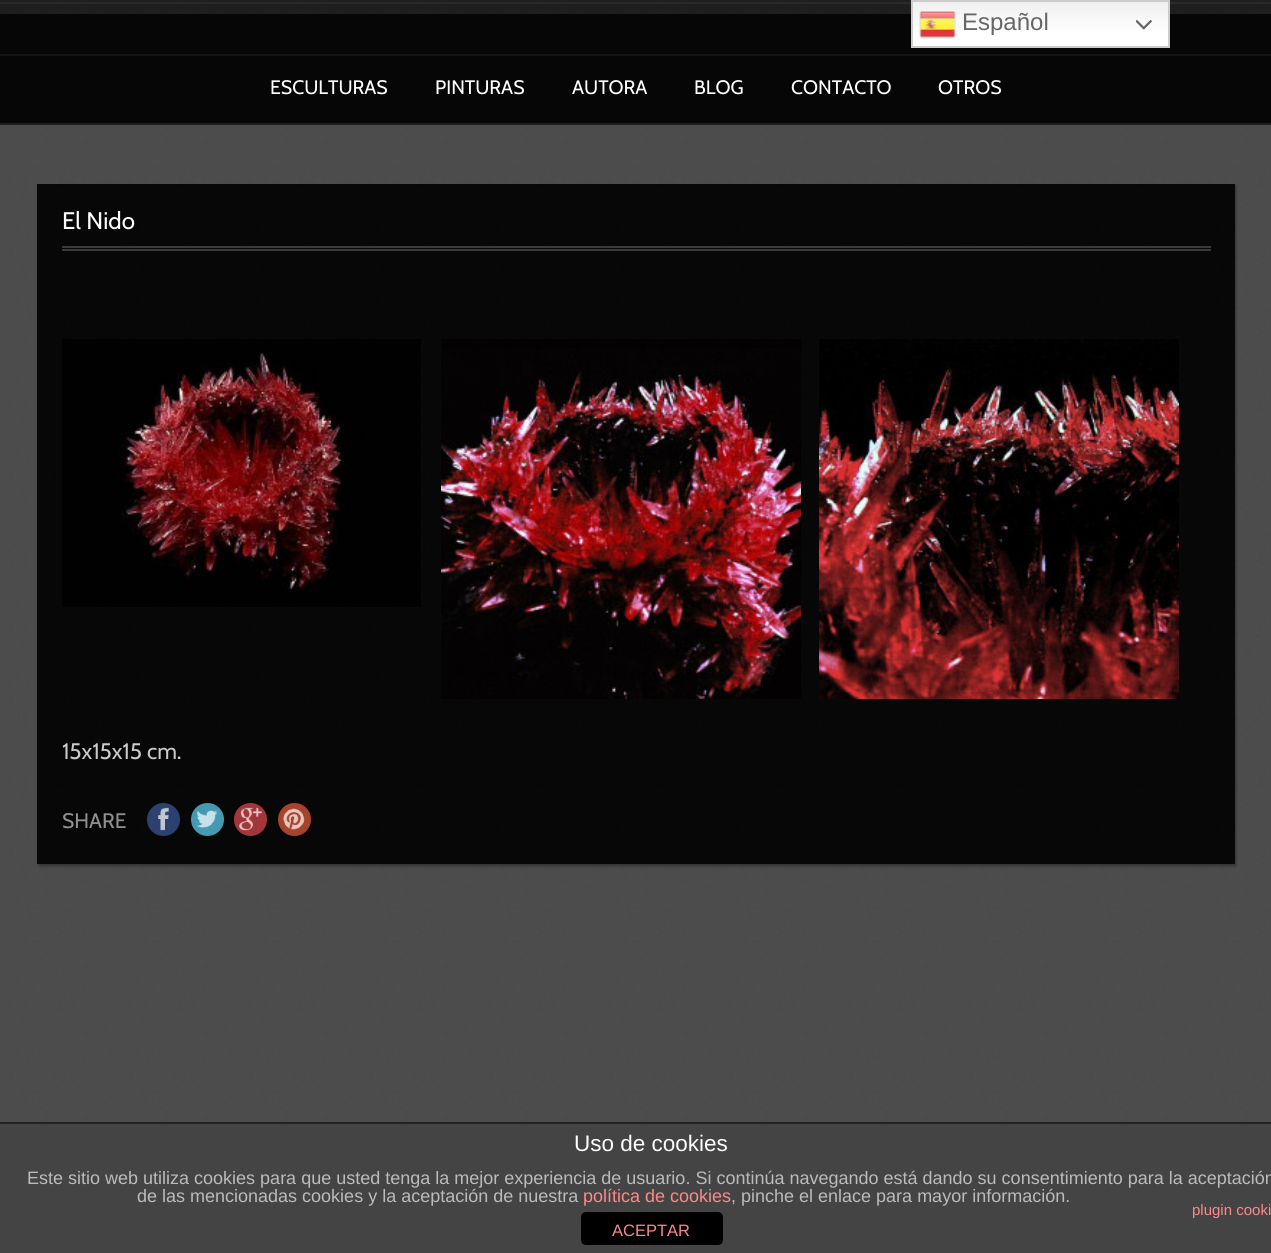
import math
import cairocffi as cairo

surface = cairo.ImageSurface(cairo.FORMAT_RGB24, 1271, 1253)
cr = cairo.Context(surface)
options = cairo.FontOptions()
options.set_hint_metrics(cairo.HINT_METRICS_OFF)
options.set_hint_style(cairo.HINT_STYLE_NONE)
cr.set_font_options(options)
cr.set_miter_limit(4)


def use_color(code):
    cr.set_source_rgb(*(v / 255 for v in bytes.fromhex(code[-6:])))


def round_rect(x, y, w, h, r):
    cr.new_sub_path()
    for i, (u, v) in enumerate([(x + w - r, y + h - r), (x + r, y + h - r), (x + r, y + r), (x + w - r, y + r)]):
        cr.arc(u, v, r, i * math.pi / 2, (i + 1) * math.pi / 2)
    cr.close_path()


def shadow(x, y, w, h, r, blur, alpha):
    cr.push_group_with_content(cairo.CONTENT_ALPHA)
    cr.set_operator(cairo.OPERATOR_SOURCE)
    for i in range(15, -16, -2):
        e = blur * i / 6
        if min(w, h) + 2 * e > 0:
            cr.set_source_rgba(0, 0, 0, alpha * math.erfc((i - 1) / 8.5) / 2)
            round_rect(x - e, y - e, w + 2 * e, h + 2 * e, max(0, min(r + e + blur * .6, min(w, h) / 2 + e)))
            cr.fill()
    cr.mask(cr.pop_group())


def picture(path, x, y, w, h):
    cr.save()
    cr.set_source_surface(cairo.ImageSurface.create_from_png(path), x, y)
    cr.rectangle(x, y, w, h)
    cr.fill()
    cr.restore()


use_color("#6a6a6a")
cr.paint()
picture("img1.png", 0, 0, 1271, 1122)
cr.set_source_rgba(0, 0, 0, 0.6)
cr.rectangle(0, 0, 1271, 123)
cr.fill()
use_color("#2a2a2a")
cr.rectangle(0, 2, 1271, 2)
cr.fill()
use_color("#060606")
cr.rectangle(0, 14, 1271, 39)
cr.fill()
gradient = cairo.LinearGradient(1040, 0, 1040, 48)
gradient.add_color_stop_rgba(0, 0.937, 0.937, 0.937, 1)
gradient.add_color_stop_rgba(0.7, 1, 1, 1, 1)
cr.set_source(gradient)
cr.rectangle(913, 2, 255, 44)
cr.fill()
cr.rectangle(912, 1, 257, 46)
use_color("#cccccc")
cr.stroke()
picture("img2.png", 919, 11, 37, 28)
cr.select_font_face("Liberation Sans")
cr.set_font_size(24)
use_color("#666666")
cr.move_to(962, 30)
cr.show_text("Español")
picture("img3.png", 1136, 20, 16, 10)
use_color("#1f1f1f")
cr.rectangle(0, 123, 1271, 2)
cr.fill()
cr.set_source_rgba(0, 0, 0, 0.8)
cr.rectangle(0, 53, 1271, 70)
cr.fill()
use_color("#131313")
cr.rectangle(0, 54, 1271, 2)
cr.fill()
cr.set_source_rgba(0, 0, 0, 0.1)
cr.rectangle(0, 123, 1271, 1)
cr.fill()
cr.select_font_face("Cabin")
cr.set_font_size(19.5)
use_color("#ffffff")
cr.move_to(270, 94)
cr.show_text("ESCULTURAS")
cr.move_to(435, 94)
cr.show_text("PINTURAS")
cr.move_to(572, 94)
cr.show_text("AUTORA")
cr.move_to(694, 94)
cr.show_text("BLOG")
cr.move_to(791, 94)
cr.show_text("CONTACTO")
cr.move_to(938, 94)
cr.show_text("OTROS")
cr.save()
cr.set_fill_rule(cairo.FILL_RULE_EVEN_ODD)
cr.new_path()
cr.move_to(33, 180)
cr.line_to(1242, 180)
cr.line_to(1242, 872)
cr.line_to(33, 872)
cr.close_path()
cr.move_to(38, 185)
cr.line_to(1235, 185)
cr.line_to(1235, 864)
cr.line_to(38, 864)
cr.close_path()
cr.clip()
use_color("#2b2b2b")
shadow(39, 186, 1197, 680, 0, 1.5, 0.8)
cr.restore()
cr.set_source_rgba(0, 0, 0, 0.9)
cr.rectangle(37, 184, 1198, 680)
cr.fill()
cr.set_font_size(24)
use_color("#ffffff")
cr.move_to(62, 229)
cr.show_text("El Nido")
use_color("#3a3a3a")
cr.rectangle(62, 246, 1149, 2)
cr.fill()
cr.rectangle(62, 249, 1149, 2)
cr.fill()
picture("img4.png", 62, 339, 359, 268)
picture("img5.png", 441, 339, 360, 360)
picture("img6.png", 819, 339, 360, 360)
cr.set_font_size(22.5)
use_color("#cbcbcb")
cr.move_to(62, 759)
cr.show_text("15x15x15 cm.")
cr.set_font_size(21)
use_color("#909090")
cr.move_to(62, 828)
cr.show_text("SHARE")
use_color("#2d416f")
cr.new_path()
cr.arc(163.5, 819.5, 16.5, 0, 2 * math.pi)
cr.fill()
picture("img7.png", 158, 807, 11, 24)
use_color("#4599b3")
cr.arc(207.5, 819.5, 16.5, 0, 2 * math.pi)
cr.fill()
picture("img8.png", 196, 810, 22, 18)
use_color("#a3363a")
cr.arc(250.5, 819.5, 16.5, 0, 2 * math.pi)
cr.fill()
picture("img9.png", 239, 807, 23, 24)
use_color("#a5432b")
cr.arc(294.5, 819.5, 16.5, 0, 2 * math.pi)
cr.fill()
picture("img10.png", 283, 808, 22, 22)
use_color("#444444")
cr.rectangle(0, 1124, 1271, 129)
cr.fill()
use_color("#222222")
cr.rectangle(0, 1122, 1271, 2)
cr.fill()
cr.select_font_face("Liberation Sans")
cr.set_font_size(22.5)
use_color("#ffffff")
cr.move_to(574, 1151)
cr.show_text("Uso de cookies")
cr.set_font_size(18)
use_color("#bbbbbb")
cr.move_to(27, 1184)
cr.show_text("Este sitio web utiliza cookies para que usted tenga la mejor experiencia de usuario. Si continúa navegando está dando su consentimiento para la aceptación")
cr.move_to(137, 1202)
cr.show_text("de las mencionadas cookies y la aceptación de nuestra")
use_color("#ff8888")
cr.move_to(583, 1202)
cr.show_text("política de cookies")
use_color("#bbbbbb")
cr.move_to(731, 1202)
cr.show_text(", pinche el enlace para mayor información.")
cr.set_font_size(15)
use_color("#ff8888")
cr.move_to(1192, 1215)
cr.show_text("plugin cooki")
use_color("#000000")
round_rect(581, 1212, 142, 33, 5)
cr.fill()
cr.set_font_size(16.5)
use_color("#ff8888")
cr.move_to(612, 1236)
cr.show_text("ACEPTAR")
surface.write_to_png("result.png")
